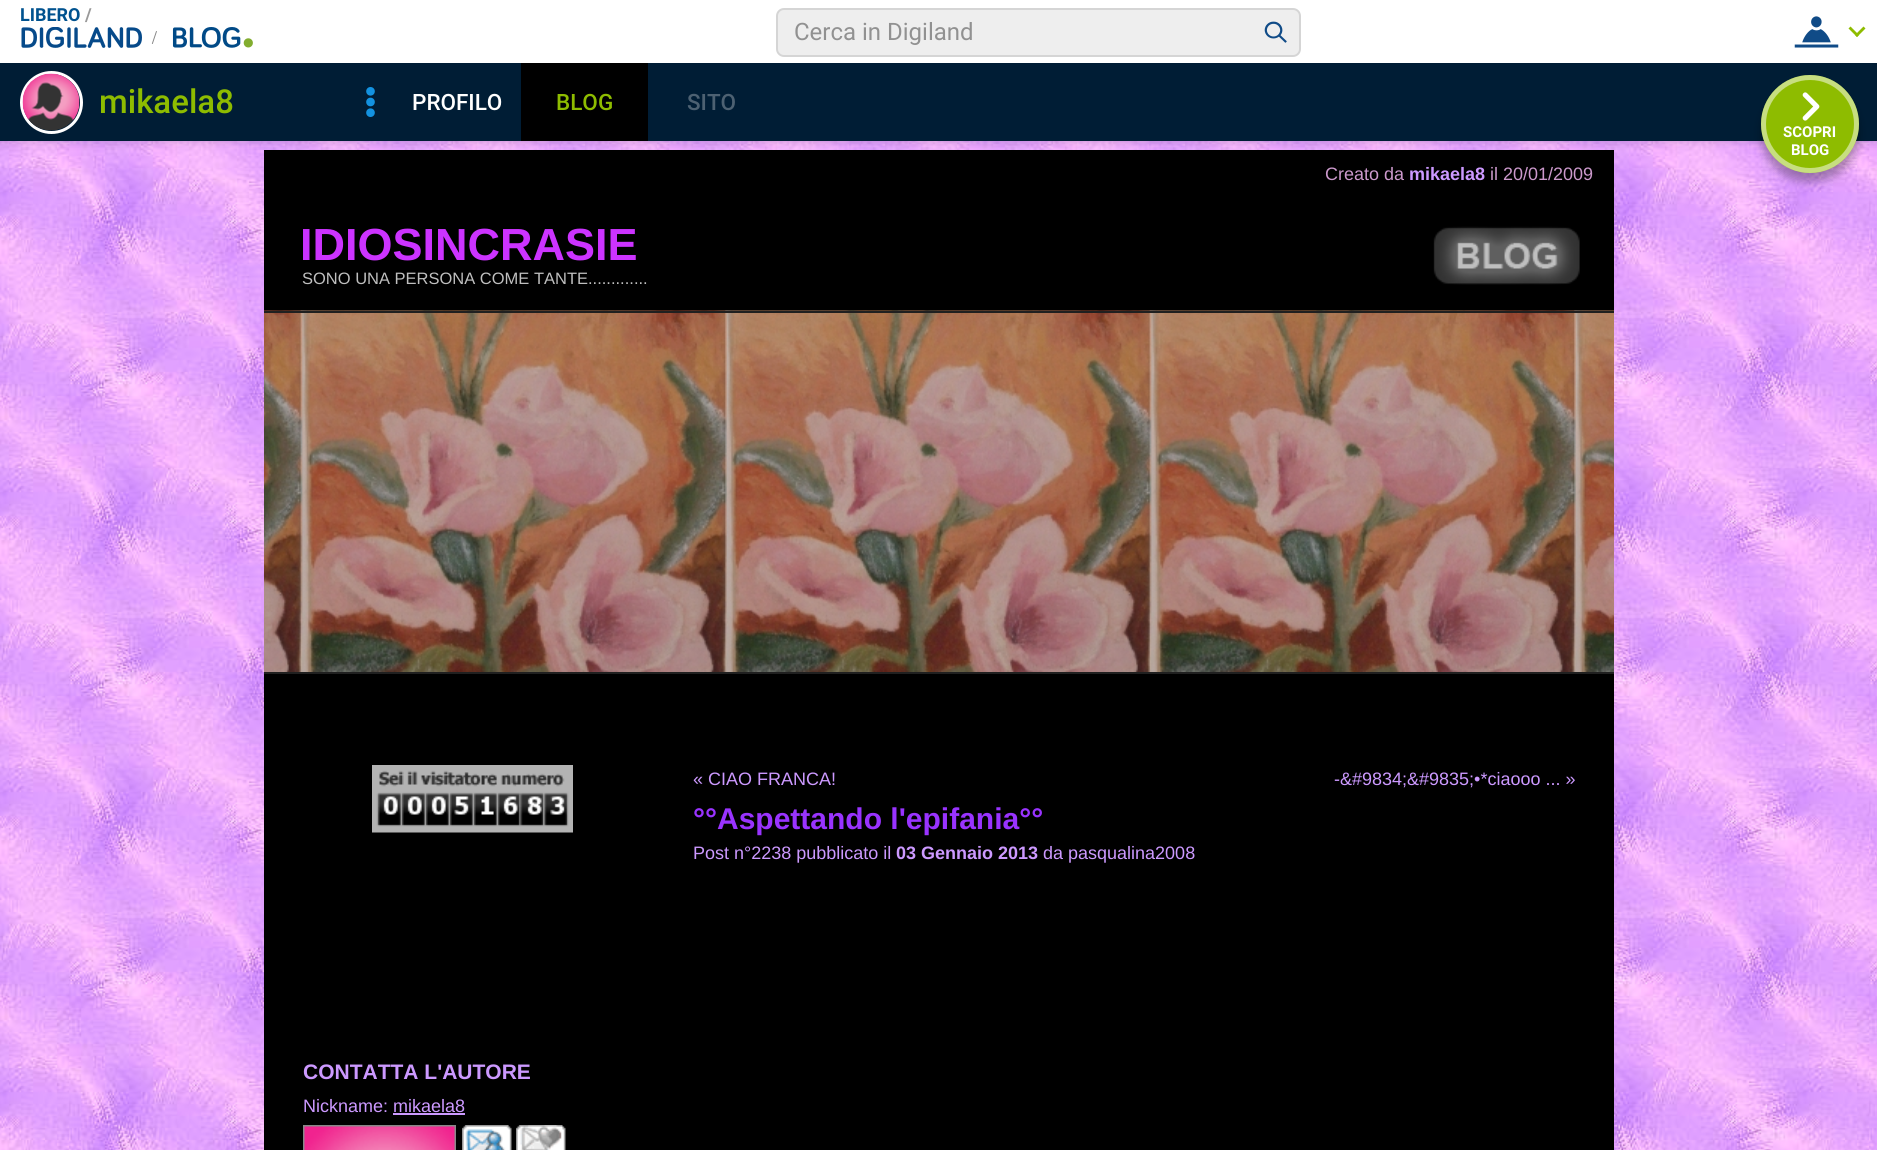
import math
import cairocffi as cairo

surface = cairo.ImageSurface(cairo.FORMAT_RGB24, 1877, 1150)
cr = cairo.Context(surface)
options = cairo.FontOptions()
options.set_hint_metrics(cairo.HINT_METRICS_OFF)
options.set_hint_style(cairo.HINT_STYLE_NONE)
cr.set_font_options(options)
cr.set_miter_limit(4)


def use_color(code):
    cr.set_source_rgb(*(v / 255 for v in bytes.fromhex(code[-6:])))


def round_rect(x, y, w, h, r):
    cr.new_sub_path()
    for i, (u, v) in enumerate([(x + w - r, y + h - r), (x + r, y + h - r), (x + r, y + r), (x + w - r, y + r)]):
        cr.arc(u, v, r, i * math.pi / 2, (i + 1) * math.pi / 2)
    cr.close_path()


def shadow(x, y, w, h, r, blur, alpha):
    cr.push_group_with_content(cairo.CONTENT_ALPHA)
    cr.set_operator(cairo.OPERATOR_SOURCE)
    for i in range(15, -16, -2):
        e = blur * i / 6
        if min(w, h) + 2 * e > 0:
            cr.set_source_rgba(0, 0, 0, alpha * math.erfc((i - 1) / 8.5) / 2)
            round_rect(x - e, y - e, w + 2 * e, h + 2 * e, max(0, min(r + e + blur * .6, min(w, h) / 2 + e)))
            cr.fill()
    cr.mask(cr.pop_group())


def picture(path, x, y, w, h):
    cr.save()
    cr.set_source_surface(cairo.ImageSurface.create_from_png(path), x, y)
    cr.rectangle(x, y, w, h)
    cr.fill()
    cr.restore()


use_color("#ffffff")
cr.paint()
picture("img1.png", 0, 141, 1877, 1009)
use_color("#000000")
cr.rectangle(264, 150, 1350, 1000)
cr.fill()
use_color("#000000")
shadow(0, 0, 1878, 141, 0, 4.5, 0.2)
use_color("#ffffff")
cr.rectangle(0, 0, 1877, 63)
cr.fill()
cr.select_font_face("Roboto", cairo.FONT_SLANT_NORMAL, cairo.FONT_WEIGHT_BOLD)
cr.set_font_size(18)
use_color("#00528f")
cr.move_to(20, 21)
cr.show_text("LIBERO")
use_color("#999999")
cr.move_to(85, 21)
cr.show_text("/")
use_color("#eeeeee")
round_rect(777, 9, 523, 47, 7)
cr.fill_preserve()
use_color("#d5d5d5")
cr.stroke()
cr.select_font_face("Roboto")
cr.set_font_size(24)
use_color("#919191")
cr.move_to(794, 40)
cr.show_text("Cerca in Digiland")
picture("img2.png", 1264, 21, 23, 22)
picture("img3.png", 1794, 16, 45, 32)
use_color("#8ebc00")
cr.new_path()
cr.move_to(1863.5, 26.5)
cr.line_to(1865.5, 28.5)
cr.line_to(1857, 37)
cr.line_to(1855, 35)
cr.close_path()
cr.fill()
cr.new_path()
cr.move_to(1850.5, 26.5)
cr.line_to(1859, 35)
cr.line_to(1857, 37)
cr.line_to(1848.5, 28.5)
cr.close_path()
cr.fill()
picture("img4.png", 21, 27, 121, 21)
picture("img5.png", 151, 31, 6, 13)
picture("img6.png", 172, 27, 81, 21)
use_color("#001d35")
cr.rectangle(0, 63, 1877, 78)
cr.fill()
cr.arc(51.5, 102.5, 30, 0, 2 * math.pi)
use_color("#ffffff")
cr.set_line_width(3)
cr.stroke()
picture("img7.png", 22, 73, 58, 58)
cr.select_font_face("Roboto Medium")
cr.set_font_size(33)
use_color("#8ebc00")
cr.move_to(99, 113)
cr.show_text("mikaela8")
picture("img8.png", 366, 87, 9, 30)
cr.set_font_size(22.5)
use_color("#ffffff")
cr.move_to(412, 110)
cr.show_text("PROFILO")
use_color("#000000")
cr.rectangle(521, 63, 127, 78)
cr.fill()
use_color("#8ebc00")
cr.move_to(556, 110)
cr.show_text("BLOG")
use_color("#4d6172")
cr.move_to(687, 110)
cr.show_text("SITO")
use_color("#000000")
shadow(1761, 84, 98, 98, 49, 4.5, 0.3)
use_color("#8ebc00")
cr.arc(1810, 124, 49, 0, 2 * math.pi)
cr.fill()
cr.arc(1810, 124, 46.5, 0, 2 * math.pi)
cr.set_source_rgba(1, 1, 1, 0.5)
cr.set_line_width(5)
cr.stroke()
picture("img9.png", 1802, 92, 18, 29)
cr.select_font_face("Roboto", cairo.FONT_SLANT_NORMAL, cairo.FONT_WEIGHT_BOLD)
cr.set_font_size(15)
use_color("#ffffff")
cr.move_to(1783, 137)
cr.show_text("SCOPRI")
cr.move_to(1791, 155)
cr.show_text("BLOG")
cr.select_font_face("Liberation Sans")
cr.set_font_size(18)
use_color("#cc99cc")
cr.move_to(1325, 180)
cr.show_text("Creato da")
cr.select_font_face("Liberation Sans", cairo.FONT_SLANT_NORMAL, cairo.FONT_WEIGHT_BOLD)
use_color("#cc99ff")
cr.move_to(1409, 180)
cr.show_text("mikaela8")
cr.select_font_face("Liberation Sans")
use_color("#cc99cc")
cr.move_to(1490, 180)
cr.show_text("il 20/01/2009")
cr.select_font_face("Liberation Sans", cairo.FONT_SLANT_NORMAL, cairo.FONT_WEIGHT_BOLD)
cr.set_font_size(45)
use_color("#cc33ff")
cr.move_to(300, 260)
cr.show_text("IDIOSINCRASIE")
picture("img10.png", 1433, 226, 147, 59)
cr.select_font_face("Liberation Sans")
cr.set_font_size(16.5)
use_color("#bfbfbf")
cr.move_to(302, 284)
cr.show_text("SONO UNA PERSONA COME TANTE.............")
picture("img11.png", 264, 310, 1350, 362)
use_color("#202020")
cr.rectangle(264, 311, 1350, 2)
cr.fill()
cr.rectangle(264, 672, 1350, 2)
cr.fill()
cr.set_font_size(18)
use_color("#cc99ff")
cr.move_to(693, 785)
cr.show_text("« CIAO FRANCA!")
cr.move_to(1334, 785)
cr.show_text("-&#9834;&#9835;•*ciaooo ... »")
cr.select_font_face("Liberation Sans", cairo.FONT_SLANT_NORMAL, cairo.FONT_WEIGHT_BOLD)
cr.set_font_size(30)
use_color("#9933ff")
cr.move_to(693, 829)
cr.show_text("°°Aspettando l'epifania°°")
cr.select_font_face("Liberation Sans")
cr.set_font_size(18)
use_color("#cc99ff")
cr.move_to(693, 859)
cr.show_text("Post n°2238 pubblicato il")
cr.select_font_face("Liberation Sans", cairo.FONT_SLANT_NORMAL, cairo.FONT_WEIGHT_BOLD)
cr.move_to(896, 859)
cr.show_text("03 Gennaio 2013")
cr.select_font_face("Liberation Sans")
cr.move_to(1043, 859)
cr.show_text("da pasqualina2008")
picture("img12.png", 372, 765, 201, 68)
cr.select_font_face("Liberation Sans", cairo.FONT_SLANT_NORMAL, cairo.FONT_WEIGHT_BOLD)
cr.set_font_size(21)
cr.move_to(303, 1079)
cr.show_text("CONTATTA L'AUTORE")
cr.select_font_face("Liberation Sans")
cr.set_font_size(18)
cr.move_to(303, 1112)
cr.show_text("Nickname: mikaela8")
cr.rectangle(393, 1113, 72, 2)
cr.fill()
cr.rectangle(304, 1126, 151, 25)
use_color("#888888")
cr.set_line_width(2)
cr.stroke()
picture("img13.png", 304, 1126, 151, 24)
picture("img14.png", 462, 1125, 50, 25)
picture("img15.png", 516, 1125, 50, 25)
surface.write_to_png("result.png")
